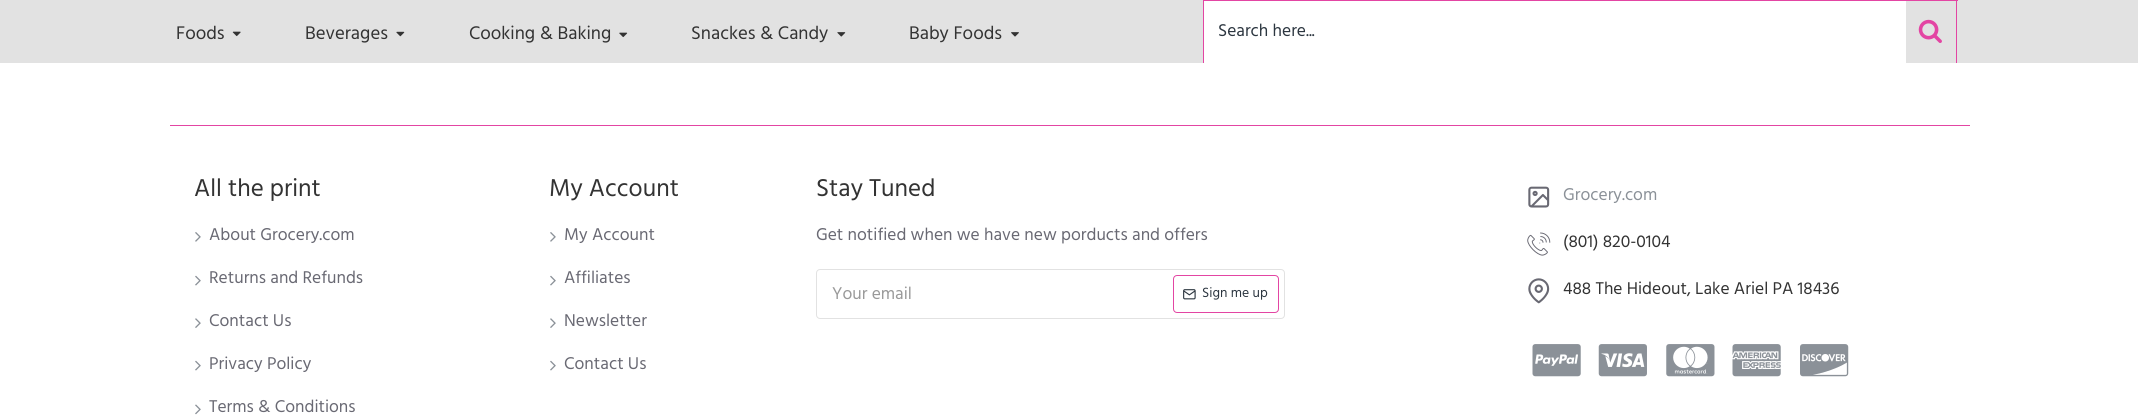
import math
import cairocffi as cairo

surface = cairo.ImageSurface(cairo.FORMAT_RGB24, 2138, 419)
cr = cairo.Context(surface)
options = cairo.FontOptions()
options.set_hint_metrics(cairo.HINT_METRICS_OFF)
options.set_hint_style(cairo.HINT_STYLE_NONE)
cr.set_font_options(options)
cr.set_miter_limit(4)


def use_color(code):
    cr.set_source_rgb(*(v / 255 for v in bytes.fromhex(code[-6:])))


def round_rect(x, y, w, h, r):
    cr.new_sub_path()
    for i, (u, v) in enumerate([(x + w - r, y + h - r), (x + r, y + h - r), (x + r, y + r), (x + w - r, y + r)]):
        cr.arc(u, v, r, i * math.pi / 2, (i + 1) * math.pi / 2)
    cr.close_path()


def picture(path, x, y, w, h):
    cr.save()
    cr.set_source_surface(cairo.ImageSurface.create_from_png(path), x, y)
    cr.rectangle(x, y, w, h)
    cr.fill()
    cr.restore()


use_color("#ffffff")
cr.paint()
use_color("#e2e2e2")
cr.rectangle(0, 0, 2138, 63)
cr.fill()
cr.select_font_face("Hind")
cr.set_font_size(18.75)
use_color("#333333")
cr.move_to(176, 39)
cr.show_text("Foods")
picture("img1.png", 232, 31, 9, 6)
cr.move_to(305, 39)
cr.show_text("Beverages")
picture("img2.png", 396, 31, 9, 6)
cr.move_to(469, 39)
cr.show_text("Cooking & Baking")
picture("img3.png", 619, 32, 9, 6)
cr.move_to(691, 39)
cr.show_text("Snackes & Candy")
picture("img4.png", 837, 32, 9, 5)
cr.move_to(909, 39)
cr.show_text("Baby Foods")
picture("img5.png", 1011, 32, 8, 5)
use_color("#e345a3")
cr.rectangle(1203, 0, 755, 1)
cr.fill()
cr.rectangle(1956, 0, 1, 63)
cr.fill()
cr.rectangle(1203, 0, 1, 63)
cr.fill()
use_color("#ffffff")
cr.rectangle(1204, 1, 702, 62)
cr.fill()
cr.set_font_size(17.5)
use_color("#2c3640")
cr.move_to(1218, 36)
cr.show_text("Search here...")
picture("img6.png", 1918, 19, 24, 24)
use_color("#e345a3")
cr.rectangle(170, 125, 1800, 1)
cr.fill()
cr.set_font_size(25)
use_color("#333333")
cr.move_to(194, 196)
cr.show_text("All the print")
picture("img7.png", 195, 232, 6, 10)
cr.set_font_size(17.5)
use_color("#696973")
cr.move_to(209, 240)
cr.show_text("About Grocery.com")
picture("img8.png", 195, 275, 6, 11)
cr.move_to(209, 283)
cr.show_text("Returns and Refunds")
picture("img9.png", 195, 318, 6, 10)
cr.move_to(209, 326)
cr.show_text("Contact Us")
picture("img8.png", 195, 360, 6, 11)
cr.move_to(209, 369)
cr.show_text("Privacy Policy")
picture("img10.png", 195, 404, 6, 11)
cr.move_to(209, 412)
cr.show_text("Terms & Conditions")
cr.set_font_size(25)
use_color("#333333")
cr.move_to(549, 196)
cr.show_text("My Account")
picture("img7.png", 550, 232, 6, 10)
cr.set_font_size(17.5)
use_color("#696973")
cr.move_to(564, 240)
cr.show_text("My Account")
picture("img8.png", 550, 275, 6, 11)
cr.move_to(564, 283)
cr.show_text("Affiliates")
picture("img9.png", 550, 318, 6, 10)
cr.move_to(564, 326)
cr.show_text("Newsletter")
picture("img8.png", 550, 360, 6, 11)
cr.move_to(564, 369)
cr.show_text("Contact Us")
cr.set_font_size(25)
use_color("#333333")
cr.move_to(816, 196)
cr.show_text("Stay Tuned")
cr.set_font_size(17.5)
use_color("#696973")
cr.move_to(816, 240)
cr.show_text("Get notified when we have new porducts and offers")
round_rect(816.5, 269.5, 468, 49, 3.5)
use_color("#e2e2e2")
cr.set_line_width(1)
cr.stroke()
use_color("#999999")
cr.move_to(832, 299)
cr.show_text("Your email")
round_rect(1173.5, 275.5, 105, 37, 3.5)
use_color("#e345a3")
cr.stroke()
picture("img11.png", 1183, 289, 13, 11)
cr.set_font_size(13.75)
use_color("#2c3640")
cr.move_to(1202, 297)
cr.show_text("Sign me up")
picture("img12.png", 1528, 186, 22, 22)
cr.set_font_size(17.5)
use_color("#8b9198")
cr.move_to(1563, 200)
cr.show_text("Grocery.com")
picture("img13.png", 1527, 232, 24, 24)
use_color("#333333")
cr.move_to(1563, 247)
cr.show_text("(801) 820-0104")
picture("img14.png", 1528, 278, 22, 26)
cr.move_to(1563, 294)
cr.show_text("488 The Hideout, Lake Ariel PA 18436")
picture("img15.png", 1532, 344, 49, 33)
picture("img16.png", 1598, 344, 49, 33)
picture("img17.png", 1666, 344, 49, 33)
picture("img18.png", 1732, 344, 49, 33)
picture("img19.png", 1800, 344, 49, 33)
surface.write_to_png("result.png")
